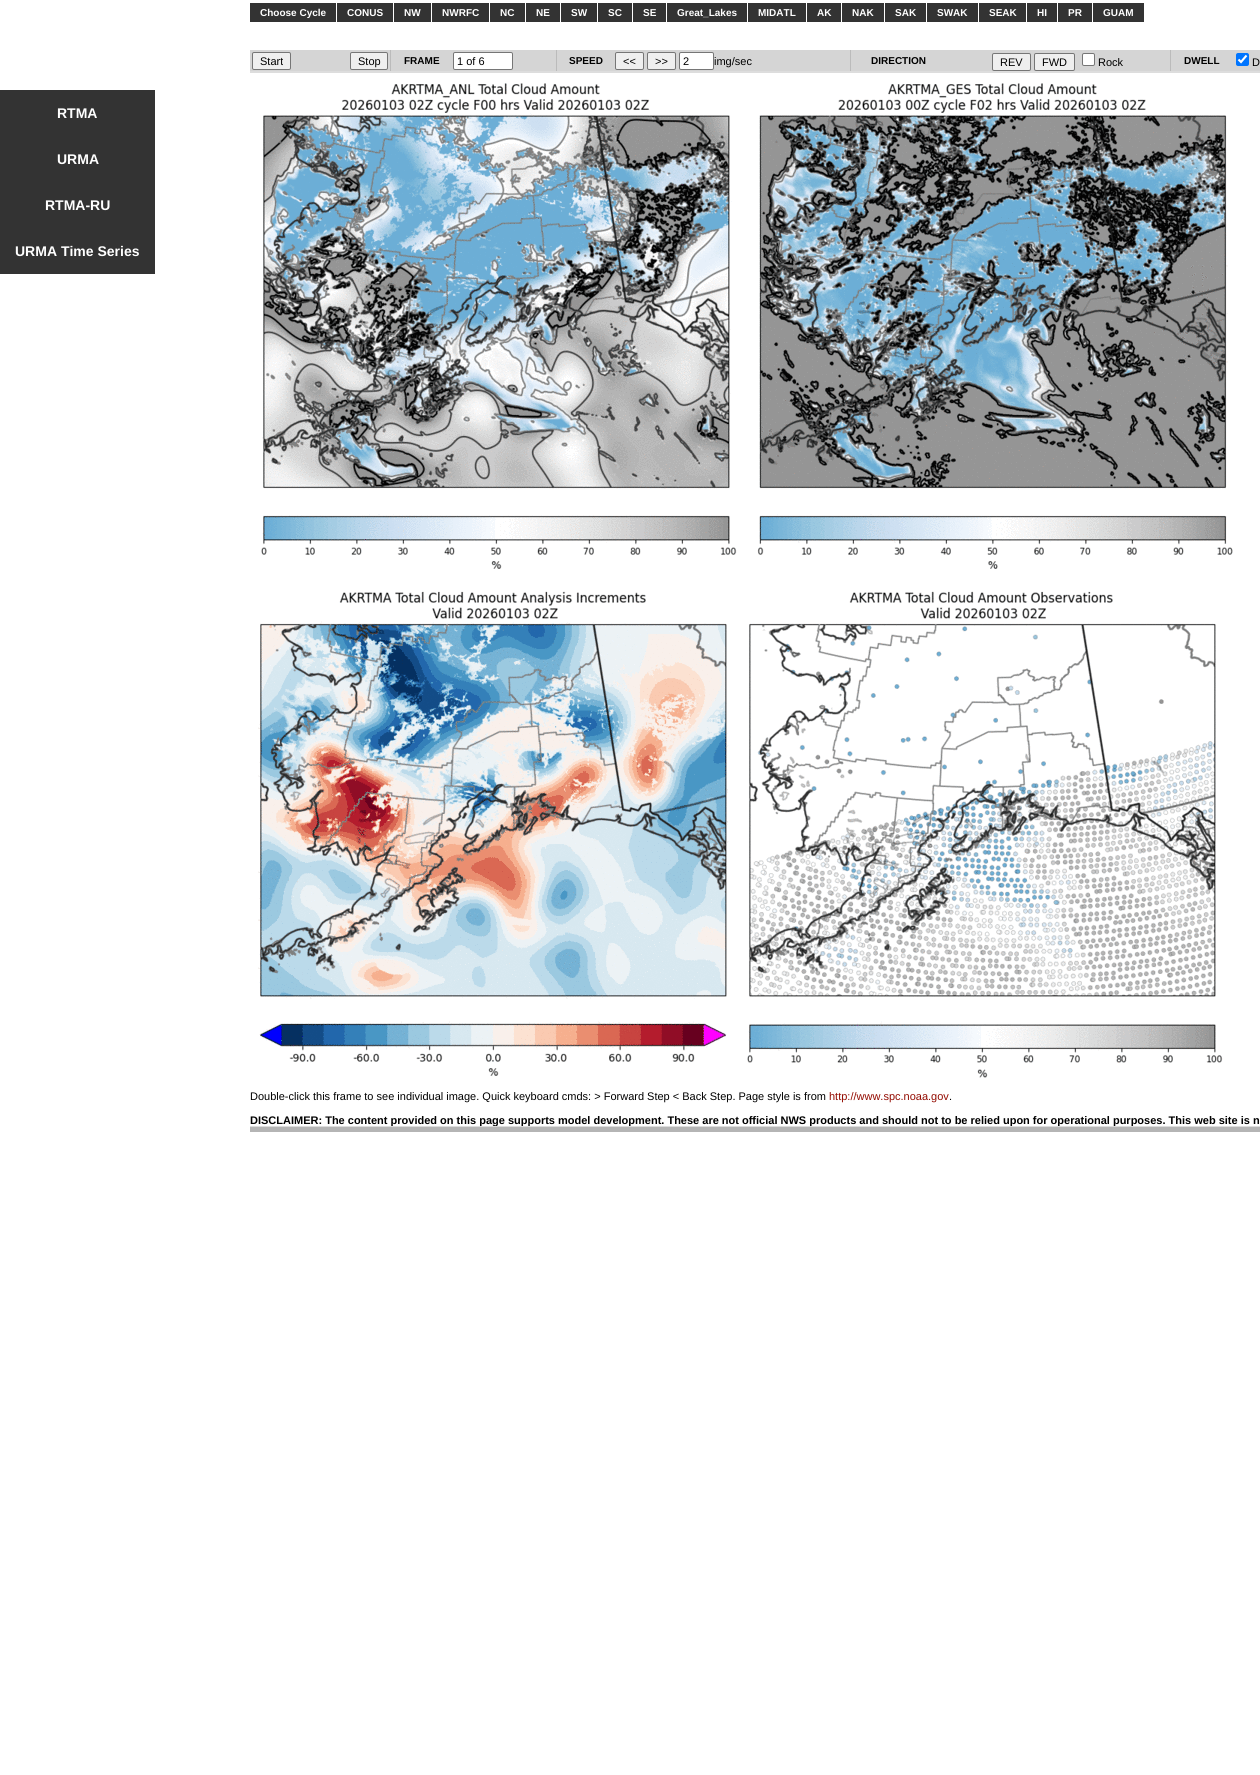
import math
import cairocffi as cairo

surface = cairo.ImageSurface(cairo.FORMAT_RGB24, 1260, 1775)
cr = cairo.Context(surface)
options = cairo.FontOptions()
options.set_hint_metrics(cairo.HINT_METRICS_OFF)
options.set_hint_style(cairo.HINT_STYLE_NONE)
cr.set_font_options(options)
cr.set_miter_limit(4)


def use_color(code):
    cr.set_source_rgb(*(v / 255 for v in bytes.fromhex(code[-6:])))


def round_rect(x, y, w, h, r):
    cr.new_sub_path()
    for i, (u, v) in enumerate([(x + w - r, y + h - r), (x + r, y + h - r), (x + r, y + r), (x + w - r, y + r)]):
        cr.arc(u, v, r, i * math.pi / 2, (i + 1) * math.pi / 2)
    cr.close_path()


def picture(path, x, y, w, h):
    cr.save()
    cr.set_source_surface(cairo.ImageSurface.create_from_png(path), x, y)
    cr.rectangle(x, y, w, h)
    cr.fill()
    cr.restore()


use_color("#ffffff")
cr.paint()
use_color("#333333")
cr.rectangle(250, 3, 86, 19)
cr.fill()
cr.select_font_face("Liberation Sans", cairo.FONT_SLANT_NORMAL, cairo.FONT_WEIGHT_BOLD)
cr.set_font_size(10)
use_color("#ffffff")
cr.move_to(260, 16)
cr.show_text("Choose Cycle")
use_color("#333333")
cr.rectangle(337, 3, 56, 19)
cr.fill()
use_color("#ffffff")
cr.move_to(347, 16)
cr.show_text("CONUS")
use_color("#333333")
cr.rectangle(394, 3, 37, 19)
cr.fill()
use_color("#ffffff")
cr.move_to(404, 16)
cr.show_text("NW")
use_color("#333333")
cr.rectangle(432, 3, 57, 19)
cr.fill()
use_color("#ffffff")
cr.move_to(442, 16)
cr.show_text("NWRFC")
use_color("#333333")
cr.rectangle(490, 3, 35, 19)
cr.fill()
use_color("#ffffff")
cr.move_to(500, 16)
cr.show_text("NC")
use_color("#333333")
cr.rectangle(526, 3, 34, 19)
cr.fill()
use_color("#ffffff")
cr.move_to(536, 16)
cr.show_text("NE")
use_color("#333333")
cr.rectangle(561, 3, 36, 19)
cr.fill()
use_color("#ffffff")
cr.move_to(571, 16)
cr.show_text("SW")
use_color("#333333")
cr.rectangle(598, 3, 34, 19)
cr.fill()
use_color("#ffffff")
cr.move_to(608, 16)
cr.show_text("SC")
use_color("#333333")
cr.rectangle(633, 3, 33, 19)
cr.fill()
use_color("#ffffff")
cr.move_to(643, 16)
cr.show_text("SE")
use_color("#333333")
cr.rectangle(667, 3, 80, 19)
cr.fill()
use_color("#ffffff")
cr.move_to(677, 16)
cr.show_text("Great_Lakes")
use_color("#333333")
cr.rectangle(748, 3, 58, 19)
cr.fill()
use_color("#ffffff")
cr.move_to(758, 16)
cr.show_text("MIDATL")
use_color("#333333")
cr.rectangle(807, 3, 34, 19)
cr.fill()
use_color("#ffffff")
cr.move_to(817, 16)
cr.show_text("AK")
use_color("#333333")
cr.rectangle(842, 3, 42, 19)
cr.fill()
use_color("#ffffff")
cr.move_to(852, 16)
cr.show_text("NAK")
use_color("#333333")
cr.rectangle(885, 3, 41, 19)
cr.fill()
use_color("#ffffff")
cr.move_to(895, 16)
cr.show_text("SAK")
use_color("#333333")
cr.rectangle(927, 3, 51, 19)
cr.fill()
use_color("#ffffff")
cr.move_to(937, 16)
cr.show_text("SWAK")
use_color("#333333")
cr.rectangle(979, 3, 47, 19)
cr.fill()
use_color("#ffffff")
cr.move_to(989, 16)
cr.show_text("SEAK")
use_color("#333333")
cr.rectangle(1027, 3, 30, 19)
cr.fill()
use_color("#ffffff")
cr.move_to(1037, 16)
cr.show_text("HI")
use_color("#333333")
cr.rectangle(1058, 3, 34, 19)
cr.fill()
use_color("#ffffff")
cr.move_to(1068, 16)
cr.show_text("PR")
use_color("#333333")
cr.rectangle(1093, 3, 51, 19)
cr.fill()
use_color("#ffffff")
cr.move_to(1103, 16)
cr.show_text("GUAM")
use_color("#333333")
cr.rectangle(0, 90, 155, 184)
cr.fill()
cr.set_font_size(14)
use_color("#ffffff")
cr.move_to(57, 118)
cr.show_text("RTMA")
cr.move_to(57, 164)
cr.show_text("URMA")
cr.move_to(45, 210)
cr.show_text("RTMA-RU")
cr.move_to(15, 256)
cr.show_text("URMA Time Series")
use_color("#b5b5b5")
cr.rectangle(250, 1127, 1010, 5)
cr.fill()
use_color("#d5d5d5")
cr.rectangle(250, 50, 1010, 21)
cr.fill()
use_color("#dddddd")
cr.rectangle(250, 71, 1010, 2)
cr.fill()
use_color("#efefef")
round_rect(252.5, 52.5, 38, 17, 1.5)
cr.fill_preserve()
use_color("#767676")
cr.set_line_width(1)
cr.stroke()
cr.select_font_face("Liberation Sans")
cr.set_font_size(11)
use_color("#000000")
cr.move_to(260, 65)
cr.show_text("Start")
use_color("#efefef")
round_rect(350.5, 52.5, 37, 17, 1.5)
cr.fill_preserve()
use_color("#767676")
cr.stroke()
use_color("#000000")
cr.move_to(358, 65)
cr.show_text("Stop")
use_color("#bbbbbb")
cr.rectangle(390, 50, 1, 21)
cr.fill()
cr.select_font_face("Liberation Sans", cairo.FONT_SLANT_NORMAL, cairo.FONT_WEIGHT_BOLD)
cr.set_font_size(10)
use_color("#000000")
cr.move_to(404, 64)
cr.show_text("FRAME")
use_color("#ffffff")
round_rect(453.5, 52.5, 59, 17, 1.5)
cr.fill_preserve()
use_color("#767676")
cr.stroke()
cr.select_font_face("Liberation Sans")
cr.set_font_size(11)
use_color("#000000")
cr.move_to(457, 65)
cr.show_text("1 of 6")
use_color("#bbbbbb")
cr.rectangle(556, 50, 1, 21)
cr.fill()
cr.select_font_face("Liberation Sans", cairo.FONT_SLANT_NORMAL, cairo.FONT_WEIGHT_BOLD)
cr.set_font_size(10)
use_color("#000000")
cr.move_to(569, 64)
cr.show_text("SPEED")
use_color("#efefef")
round_rect(615.5, 52.5, 28, 17, 1.5)
cr.fill_preserve()
use_color("#767676")
cr.stroke()
cr.select_font_face("Liberation Sans")
cr.set_font_size(11)
use_color("#000000")
cr.move_to(623, 65)
cr.show_text("<<")
use_color("#efefef")
round_rect(647.5, 52.5, 28, 17, 1.5)
cr.fill_preserve()
use_color("#767676")
cr.stroke()
use_color("#000000")
cr.move_to(655, 65)
cr.show_text(">>")
use_color("#ffffff")
round_rect(679.5, 52.5, 34, 17, 1.5)
cr.fill_preserve()
use_color("#767676")
cr.stroke()
use_color("#000000")
cr.move_to(683, 65)
cr.show_text("2")
cr.move_to(714, 65)
cr.show_text("img/sec")
use_color("#bbbbbb")
cr.rectangle(850, 50, 1, 21)
cr.fill()
cr.select_font_face("Liberation Sans", cairo.FONT_SLANT_NORMAL, cairo.FONT_WEIGHT_BOLD)
cr.set_font_size(10)
use_color("#000000")
cr.move_to(871, 64)
cr.show_text("DIRECTION")
use_color("#efefef")
round_rect(992.5, 53.5, 38, 17, 1.5)
cr.fill_preserve()
use_color("#767676")
cr.stroke()
cr.select_font_face("Liberation Sans")
cr.set_font_size(11)
use_color("#000000")
cr.move_to(1000, 66)
cr.show_text("REV")
use_color("#efefef")
round_rect(1034.5, 53.5, 40, 17, 1.5)
cr.fill_preserve()
use_color("#767676")
cr.stroke()
use_color("#000000")
cr.move_to(1042, 66)
cr.show_text("FWD")
use_color("#ffffff")
round_rect(1082.5, 53.5, 12, 12, 1.5)
cr.fill_preserve()
use_color("#767676")
cr.stroke()
use_color("#000000")
cr.move_to(1098, 66)
cr.show_text("Rock")
use_color("#bbbbbb")
cr.rectangle(1170, 50, 1, 21)
cr.fill()
cr.select_font_face("Liberation Sans", cairo.FONT_SLANT_NORMAL, cairo.FONT_WEIGHT_BOLD)
cr.set_font_size(10)
use_color("#000000")
cr.move_to(1184, 64)
cr.show_text("DWELL")
use_color("#0075ff")
round_rect(1236, 53, 13, 13, 2)
cr.fill()
cr.new_path()
cr.move_to(1238.5, 59.5)
cr.line_to(1241, 62)
cr.line_to(1246.5, 55.5)
use_color("#ffffff")
cr.set_line_width(2.1)
cr.stroke()
cr.select_font_face("Liberation Sans")
cr.set_font_size(11)
use_color("#000000")
cr.move_to(1252, 66)
cr.show_text("D")
use_color("#dddddd")
cr.rectangle(250, 1126, 1010, 1)
cr.fill()
picture("img1.png", 258, 83, 975, 995)
use_color("#000000")
cr.move_to(250, 1100)
cr.show_text("Double-click this frame to see individual image. Quick keyboard cmds: > Forward Step < Back Step. Page style is from")
use_color("#930b01")
cr.move_to(829, 1100)
cr.show_text("http://www.spc.noaa.gov")
use_color("#000000")
cr.move_to(949, 1100)
cr.show_text(".")
cr.save()
cr.rectangle(250, 73, 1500, 1053)
cr.clip()
cr.select_font_face("Liberation Sans", cairo.FONT_SLANT_NORMAL, cairo.FONT_WEIGHT_BOLD)
cr.move_to(250, 1124)
cr.show_text("DISCLAIMER: The content provided on this page supports model development. These are not official NWS products and should not to be relied upon for operational purposes. This web site is n")
cr.restore()
surface.write_to_png("result.png")
